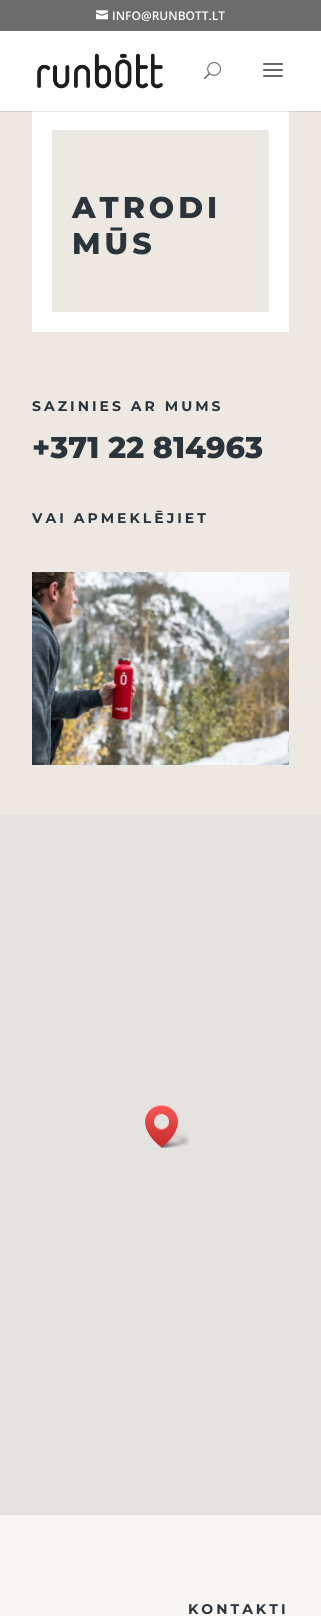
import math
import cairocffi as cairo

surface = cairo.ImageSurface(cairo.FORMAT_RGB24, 321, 1616)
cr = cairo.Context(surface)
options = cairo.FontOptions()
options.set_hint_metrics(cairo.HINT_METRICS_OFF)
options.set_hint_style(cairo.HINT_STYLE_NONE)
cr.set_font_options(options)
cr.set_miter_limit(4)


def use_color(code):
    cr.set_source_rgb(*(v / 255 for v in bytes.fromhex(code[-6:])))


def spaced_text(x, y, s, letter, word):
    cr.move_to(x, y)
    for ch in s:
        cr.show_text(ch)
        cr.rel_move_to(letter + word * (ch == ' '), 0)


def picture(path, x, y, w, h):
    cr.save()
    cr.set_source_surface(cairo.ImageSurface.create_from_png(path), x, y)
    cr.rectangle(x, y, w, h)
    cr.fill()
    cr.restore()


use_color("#eee8e2")
cr.paint()
use_color("#6c6c6c")
cr.rectangle(0, 0, 321, 31)
cr.fill()
picture("img1.png", 96, 10, 12, 10)
cr.select_font_face("Open Sans SemiBold")
cr.set_font_size(12)
use_color("#ffffff")
cr.move_to(112, 20)
cr.show_text("INFO@RUNBOTT.LT")
cr.rectangle(42, 120, 237, 202)
cr.set_line_width(20)
cr.stroke()
cr.set_source_rgba(0, 0, 0, 0.1)
cr.rectangle(0, 111, 321, 1)
cr.fill()
use_color("#ffffff")
cr.rectangle(0, 31, 321, 80)
cr.fill()
picture("img2.png", 37, 53, 126, 36)
picture("img3.png", 204, 62, 17, 18)
picture("img4.png", 263, 63, 20, 14)
cr.select_font_face("Montserrat Thin")
cr.set_font_size(30)
use_color("#2b343b")
spaced_text(72, 218, "ATRODI", 4, 0)
spaced_text(72, 254, "MŪS", 4, 0)
cr.select_font_face("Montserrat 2 Thin")
cr.set_font_size(14)
spaced_text(32, 411, "SAZINIES AR MUMS", 3, 0)
cr.select_font_face("Montserrat Thin")
cr.set_font_size(30)
cr.move_to(32, 458)
cr.show_text("+371 22 814963")
cr.select_font_face("Montserrat 2 Thin")
cr.set_font_size(14)
spaced_text(32, 523, "VAI APMEKLĒJIET", 3, 0)
picture("img5.png", 32, 572, 257, 193)
use_color("#e5e3df")
cr.rectangle(0, 815, 321, 700)
cr.fill()
picture("img6.png", 145, 1105, 45, 43)
use_color("#f8f5f3")
cr.rectangle(0, 1515, 321, 101)
cr.fill()
use_color("#2b343b")
spaced_text(188, 1614, "KONTAKTI", 3, 0)
surface.write_to_png("result.png")
